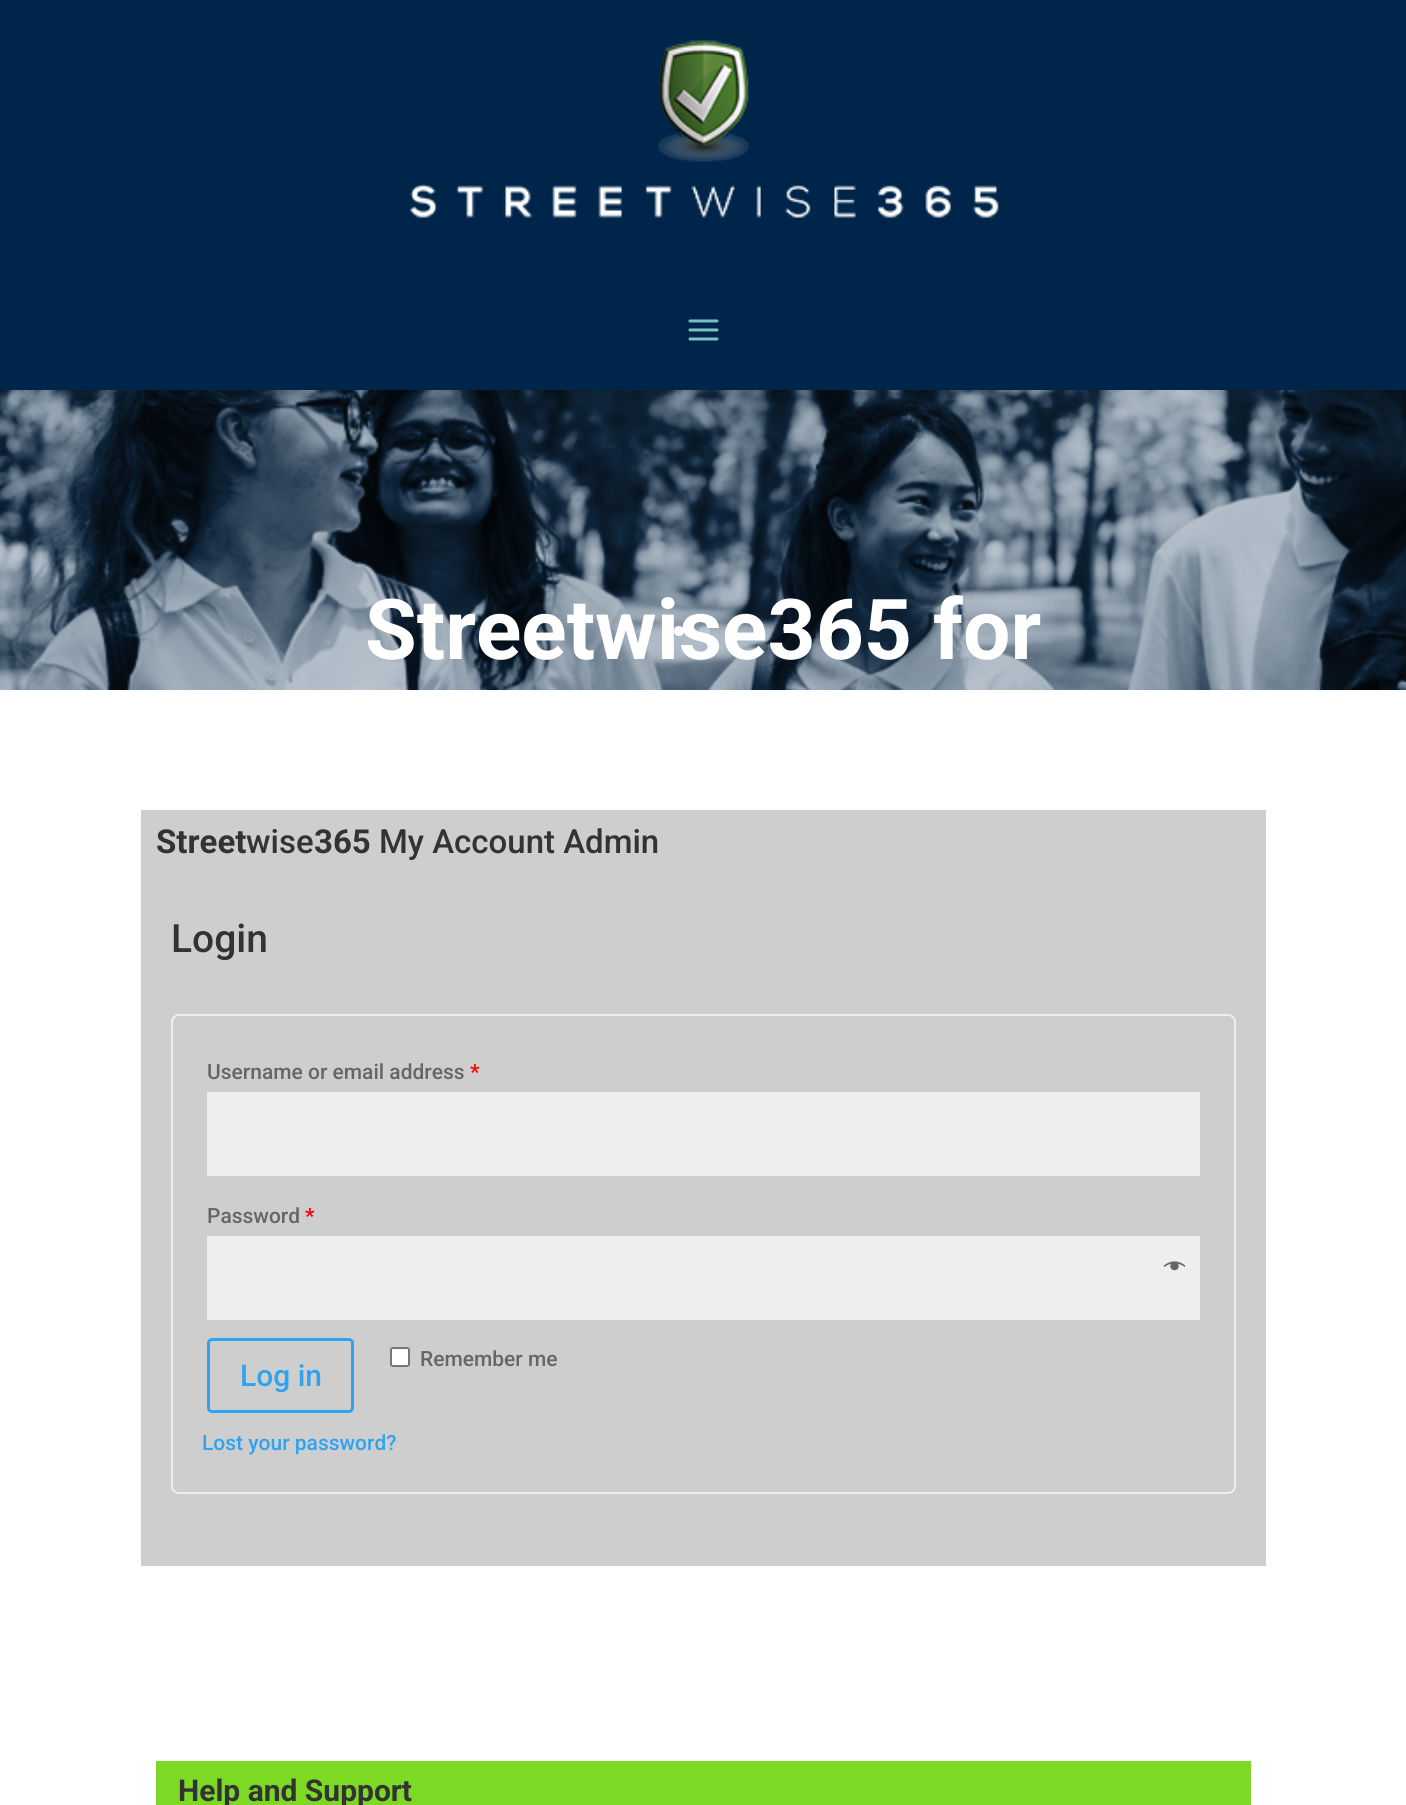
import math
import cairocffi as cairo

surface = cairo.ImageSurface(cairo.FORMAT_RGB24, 1406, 1805)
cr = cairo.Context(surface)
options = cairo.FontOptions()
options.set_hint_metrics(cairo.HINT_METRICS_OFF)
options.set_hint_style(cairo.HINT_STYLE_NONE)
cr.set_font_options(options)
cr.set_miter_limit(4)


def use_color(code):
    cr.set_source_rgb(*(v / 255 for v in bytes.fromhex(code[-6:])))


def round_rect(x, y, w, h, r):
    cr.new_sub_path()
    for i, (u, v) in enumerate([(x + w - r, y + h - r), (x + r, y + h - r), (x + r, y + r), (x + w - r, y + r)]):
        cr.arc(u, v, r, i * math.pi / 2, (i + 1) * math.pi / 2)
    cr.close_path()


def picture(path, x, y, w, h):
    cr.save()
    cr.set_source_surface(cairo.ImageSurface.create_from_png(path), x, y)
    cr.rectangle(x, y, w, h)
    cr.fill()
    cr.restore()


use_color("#ffffff")
cr.paint()
use_color("#00254a")
cr.rectangle(0, 0, 1406, 390)
cr.fill()
picture("img1.png", 410, 40, 589, 178)
picture("img2.png", 688, 319, 31, 22)
picture("img3.png", 0, 390, 1406, 300)
cr.select_font_face("Roboto", cairo.FONT_SLANT_NORMAL, cairo.FONT_WEIGHT_BOLD)
cr.set_font_size(84)
use_color("#ffffff")
cr.move_to(365, 659)
cr.show_text("Streetwise365 for")
cr.new_path()
cr.arc(679, 631, 5, 0, 2 * math.pi)
cr.fill()
cr.set_source_rgba(1, 1, 1, 0.25)
round_rect(699, 626, 11, 10, 5)
cr.fill()
cr.arc(730, 631, 5, 0, 2 * math.pi)
cr.fill()
use_color("#cecece")
cr.rectangle(141, 810, 1125, 756)
cr.fill()
cr.set_font_size(33)
use_color("#333333")
cr.move_to(156, 853)
cr.show_text("Street")
cr.select_font_face("Roboto Medium")
cr.move_to(246, 853)
cr.show_text("wise")
cr.select_font_face("Roboto", cairo.FONT_SLANT_NORMAL, cairo.FONT_WEIGHT_BOLD)
cr.move_to(314, 853)
cr.show_text("365")
cr.select_font_face("Roboto Medium")
cr.move_to(379, 853)
cr.show_text("My Account Admin")
cr.set_font_size(39)
cr.move_to(171, 952)
cr.show_text("Login")
round_rect(172, 1015, 1063, 478, 7)
use_color("#eeeeee")
cr.stroke()
cr.set_font_size(21)
use_color("#666666")
cr.move_to(207, 1079)
cr.show_text("Username or email address")
cr.select_font_face("Roboto", cairo.FONT_SLANT_NORMAL, cairo.FONT_WEIGHT_BOLD)
use_color("#ff0000")
cr.move_to(470, 1079)
cr.show_text("*")
use_color("#eeeeee")
cr.rectangle(207, 1092, 993, 84)
cr.fill()
cr.select_font_face("Roboto Medium")
use_color("#666666")
cr.move_to(207, 1223)
cr.show_text("Password")
cr.select_font_face("Roboto", cairo.FONT_SLANT_NORMAL, cairo.FONT_WEIGHT_BOLD)
use_color("#ff0000")
cr.move_to(305, 1223)
cr.show_text("*")
use_color("#eeeeee")
cr.rectangle(207, 1236, 993, 84)
cr.fill()
picture("img4.png", 1164, 1261, 21, 10)
use_color("#ffffff")
round_rect(391, 1348, 18, 18, 2)
cr.fill_preserve()
use_color("#767676")
cr.stroke()
cr.select_font_face("Roboto Medium")
use_color("#666666")
cr.move_to(420, 1366)
cr.show_text("Remember me")
round_rect(208.5, 1339.5, 144, 72, 3.5)
use_color("#2ea3f2")
cr.set_line_width(3)
cr.stroke()
cr.set_font_size(30)
cr.move_to(240, 1386)
cr.show_text("Log in")
cr.set_font_size(21)
cr.move_to(202, 1450)
cr.show_text("Lost your password?")
use_color("#7cda24")
cr.rectangle(156, 1761, 1095, 44)
cr.fill()
cr.select_font_face("Roboto", cairo.FONT_SLANT_NORMAL, cairo.FONT_WEIGHT_BOLD)
cr.set_font_size(30)
use_color("#333333")
cr.move_to(178, 1801)
cr.show_text("Help and Support")
surface.write_to_png("result.png")
